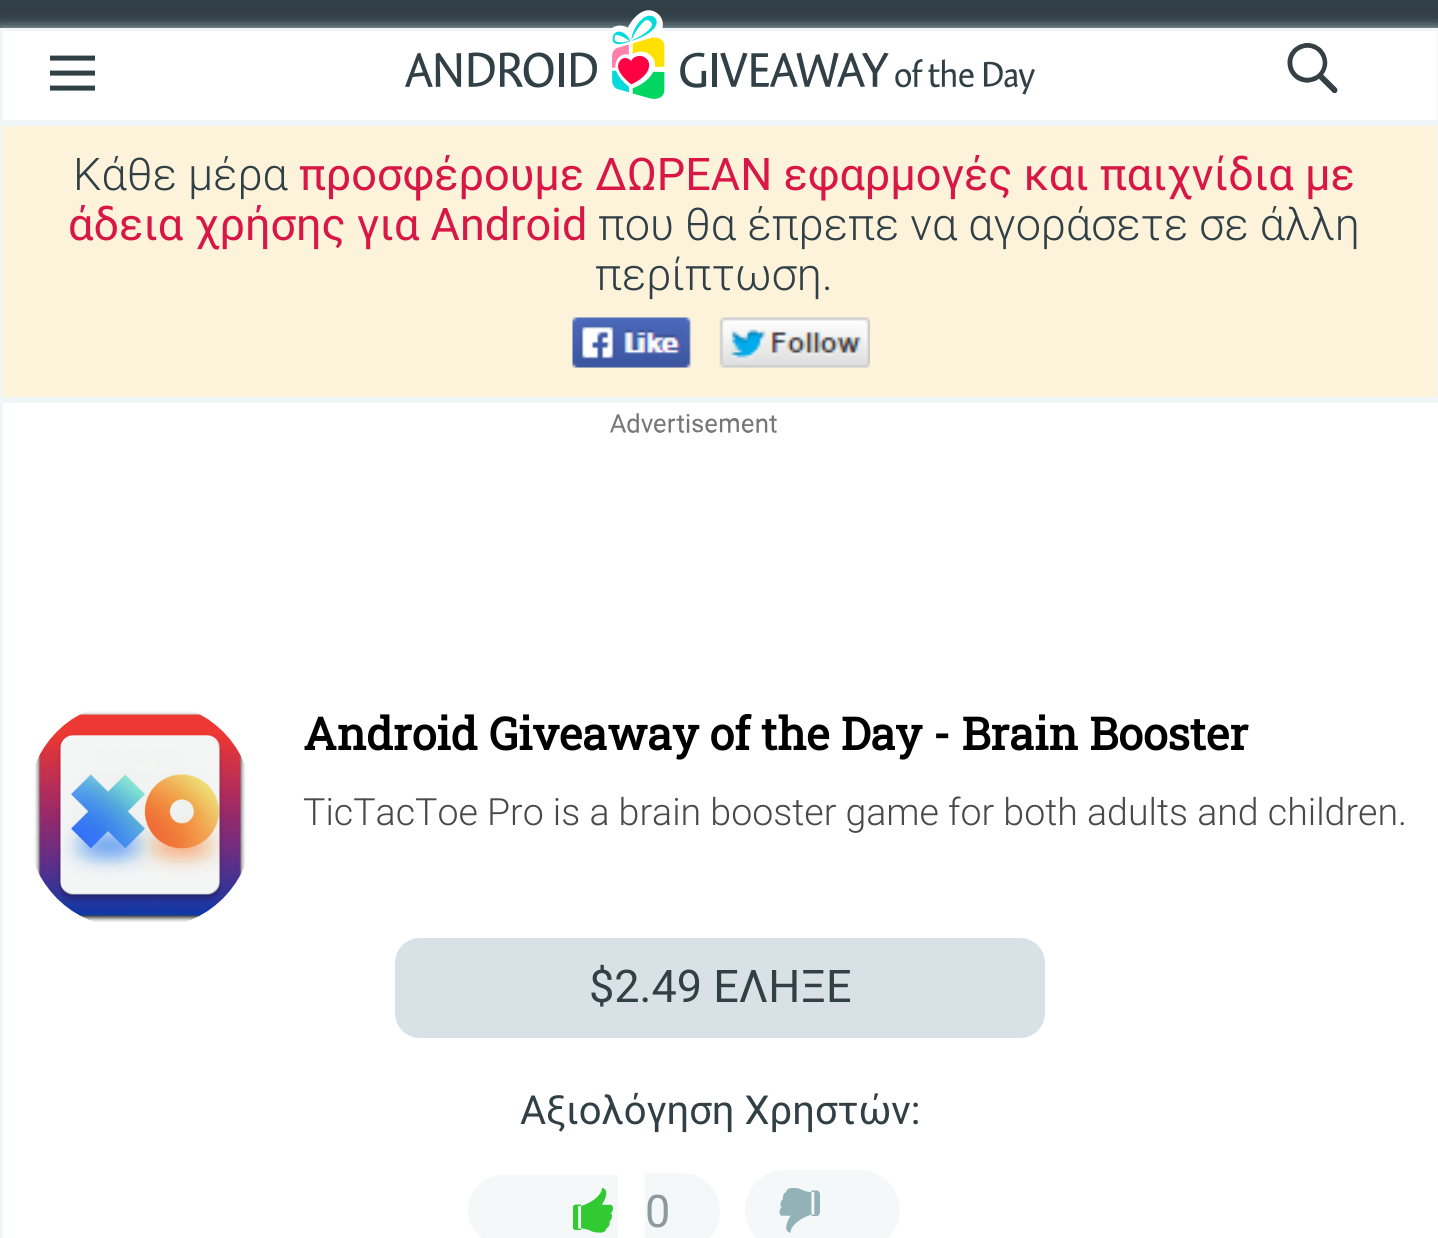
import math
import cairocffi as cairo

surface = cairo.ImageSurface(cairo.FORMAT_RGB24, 1438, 1238)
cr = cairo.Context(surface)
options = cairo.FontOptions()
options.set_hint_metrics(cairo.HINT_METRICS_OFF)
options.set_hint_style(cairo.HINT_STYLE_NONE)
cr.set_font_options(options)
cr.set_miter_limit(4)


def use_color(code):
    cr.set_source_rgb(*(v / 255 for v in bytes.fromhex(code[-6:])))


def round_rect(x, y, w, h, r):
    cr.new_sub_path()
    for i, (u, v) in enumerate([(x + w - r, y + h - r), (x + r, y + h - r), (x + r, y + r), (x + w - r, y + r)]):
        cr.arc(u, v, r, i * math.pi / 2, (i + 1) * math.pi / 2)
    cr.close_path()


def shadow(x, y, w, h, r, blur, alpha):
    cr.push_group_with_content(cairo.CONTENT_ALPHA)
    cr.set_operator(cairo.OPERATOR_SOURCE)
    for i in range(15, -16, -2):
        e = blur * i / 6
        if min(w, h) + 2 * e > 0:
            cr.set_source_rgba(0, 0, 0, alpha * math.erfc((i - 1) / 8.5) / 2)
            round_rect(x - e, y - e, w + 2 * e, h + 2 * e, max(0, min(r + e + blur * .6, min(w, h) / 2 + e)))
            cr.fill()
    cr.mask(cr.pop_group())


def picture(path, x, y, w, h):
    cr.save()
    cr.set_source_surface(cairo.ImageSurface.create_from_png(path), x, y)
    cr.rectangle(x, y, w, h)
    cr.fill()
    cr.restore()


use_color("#314046")
cr.paint()
use_color("#c7dee4")
shadow(0, 28, 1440, 95, 0, 6, 0.8)
use_color("#ffffff")
cr.rectangle(1.5, 29.5, 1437, 92)
cr.fill_preserve()
use_color("#f0f6f8")
cr.set_line_width(3)
cr.stroke()
picture("img1.png", 50, 55, 45, 36)
picture("img2.png", 405, 10, 630, 89)
picture("img3.png", 1287, 43, 51, 50)
use_color("#fdf3db")
cr.rectangle(1.5, 124.5, 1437, 274)
cr.fill_preserve()
use_color("#f0f6f8")
cr.stroke()
cr.select_font_face("Roboto Light")
cr.set_font_size(45)
use_color("#314046")
cr.move_to(73, 190)
cr.show_text("Κάθε μέρα")
cr.select_font_face("Roboto")
use_color("#d91746")
cr.move_to(299, 190)
cr.show_text("προσφέρουμε ΔΩΡΕΑΝ εφαρμογές και παιχνίδια με")
cr.move_to(68, 240)
cr.show_text("άδεια χρήσης για Android")
cr.select_font_face("Roboto Light")
use_color("#314046")
cr.move_to(598, 240)
cr.show_text("που θα έπρεπε να αγοράσετε σε άλλη")
cr.move_to(595, 290)
cr.show_text("περίπτωση.")
picture("img4.png", 572, 317, 119, 51)
picture("img5.png", 719, 317, 151, 51)
use_color("#ffffff")
cr.rectangle(3, 403, 1435, 835)
cr.fill()
use_color("#f0f6f8")
cr.rectangle(0, 400, 1438, 3)
cr.fill()
cr.rectangle(0, 400, 3, 838)
cr.fill()
picture("img6.png", 610, 413, 167, 20)
picture("img7.png", 34, 711, 212, 211)
cr.select_font_face("Roboto Slab", cairo.FONT_SLANT_NORMAL, cairo.FONT_WEIGHT_BOLD)
use_color("#000000")
cr.move_to(303, 750)
cr.show_text("Android Giveaway of the Day - Brain Booster")
cr.select_font_face("Roboto Light")
cr.set_font_size(37.5)
use_color("#494949")
cr.move_to(303, 825)
cr.show_text("TicTacToe Pro is a brain booster game for both adults and children.")
use_color("#d8e2e6")
round_rect(395, 938, 650, 100, 25)
cr.fill()
cr.select_font_face("Roboto")
cr.set_font_size(45)
use_color("#314046")
cr.move_to(589, 1002)
cr.show_text("$2.49 ΕΛΗΞΕ")
cr.set_font_size(40)
cr.move_to(520, 1124)
cr.show_text("Αξιολόγηση Χρηστών:")
use_color("#f4f8f9")
cr.new_path()
cr.move_to(503, 1175)
cr.line_to(618, 1175)
cr.line_to(618, 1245)
cr.line_to(503, 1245)
cr.curve_to(483.5, 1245, 468, 1229.5, 468, 1210)
cr.curve_to(468, 1190.5, 483.5, 1175, 503, 1175)
cr.close_path()
cr.fill()
cr.new_path()
cr.move_to(645, 1173)
cr.line_to(682.5, 1173)
cr.curve_to(703, 1173, 720, 1190, 720, 1210.5)
cr.line_to(720, 1212.5)
cr.curve_to(720, 1233, 703, 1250, 682.5, 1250)
cr.line_to(645, 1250)
cr.close_path()
cr.fill()
picture("img8.png", 573, 1188, 40, 45)
cr.set_font_size(45)
use_color("#8c999e")
cr.move_to(645, 1227)
cr.show_text("0")
use_color("#f4f8f9")
round_rect(745, 1170, 155, 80, 40)
cr.fill()
picture("img9.png", 779, 1188, 41, 45)
surface.write_to_png("result.png")
